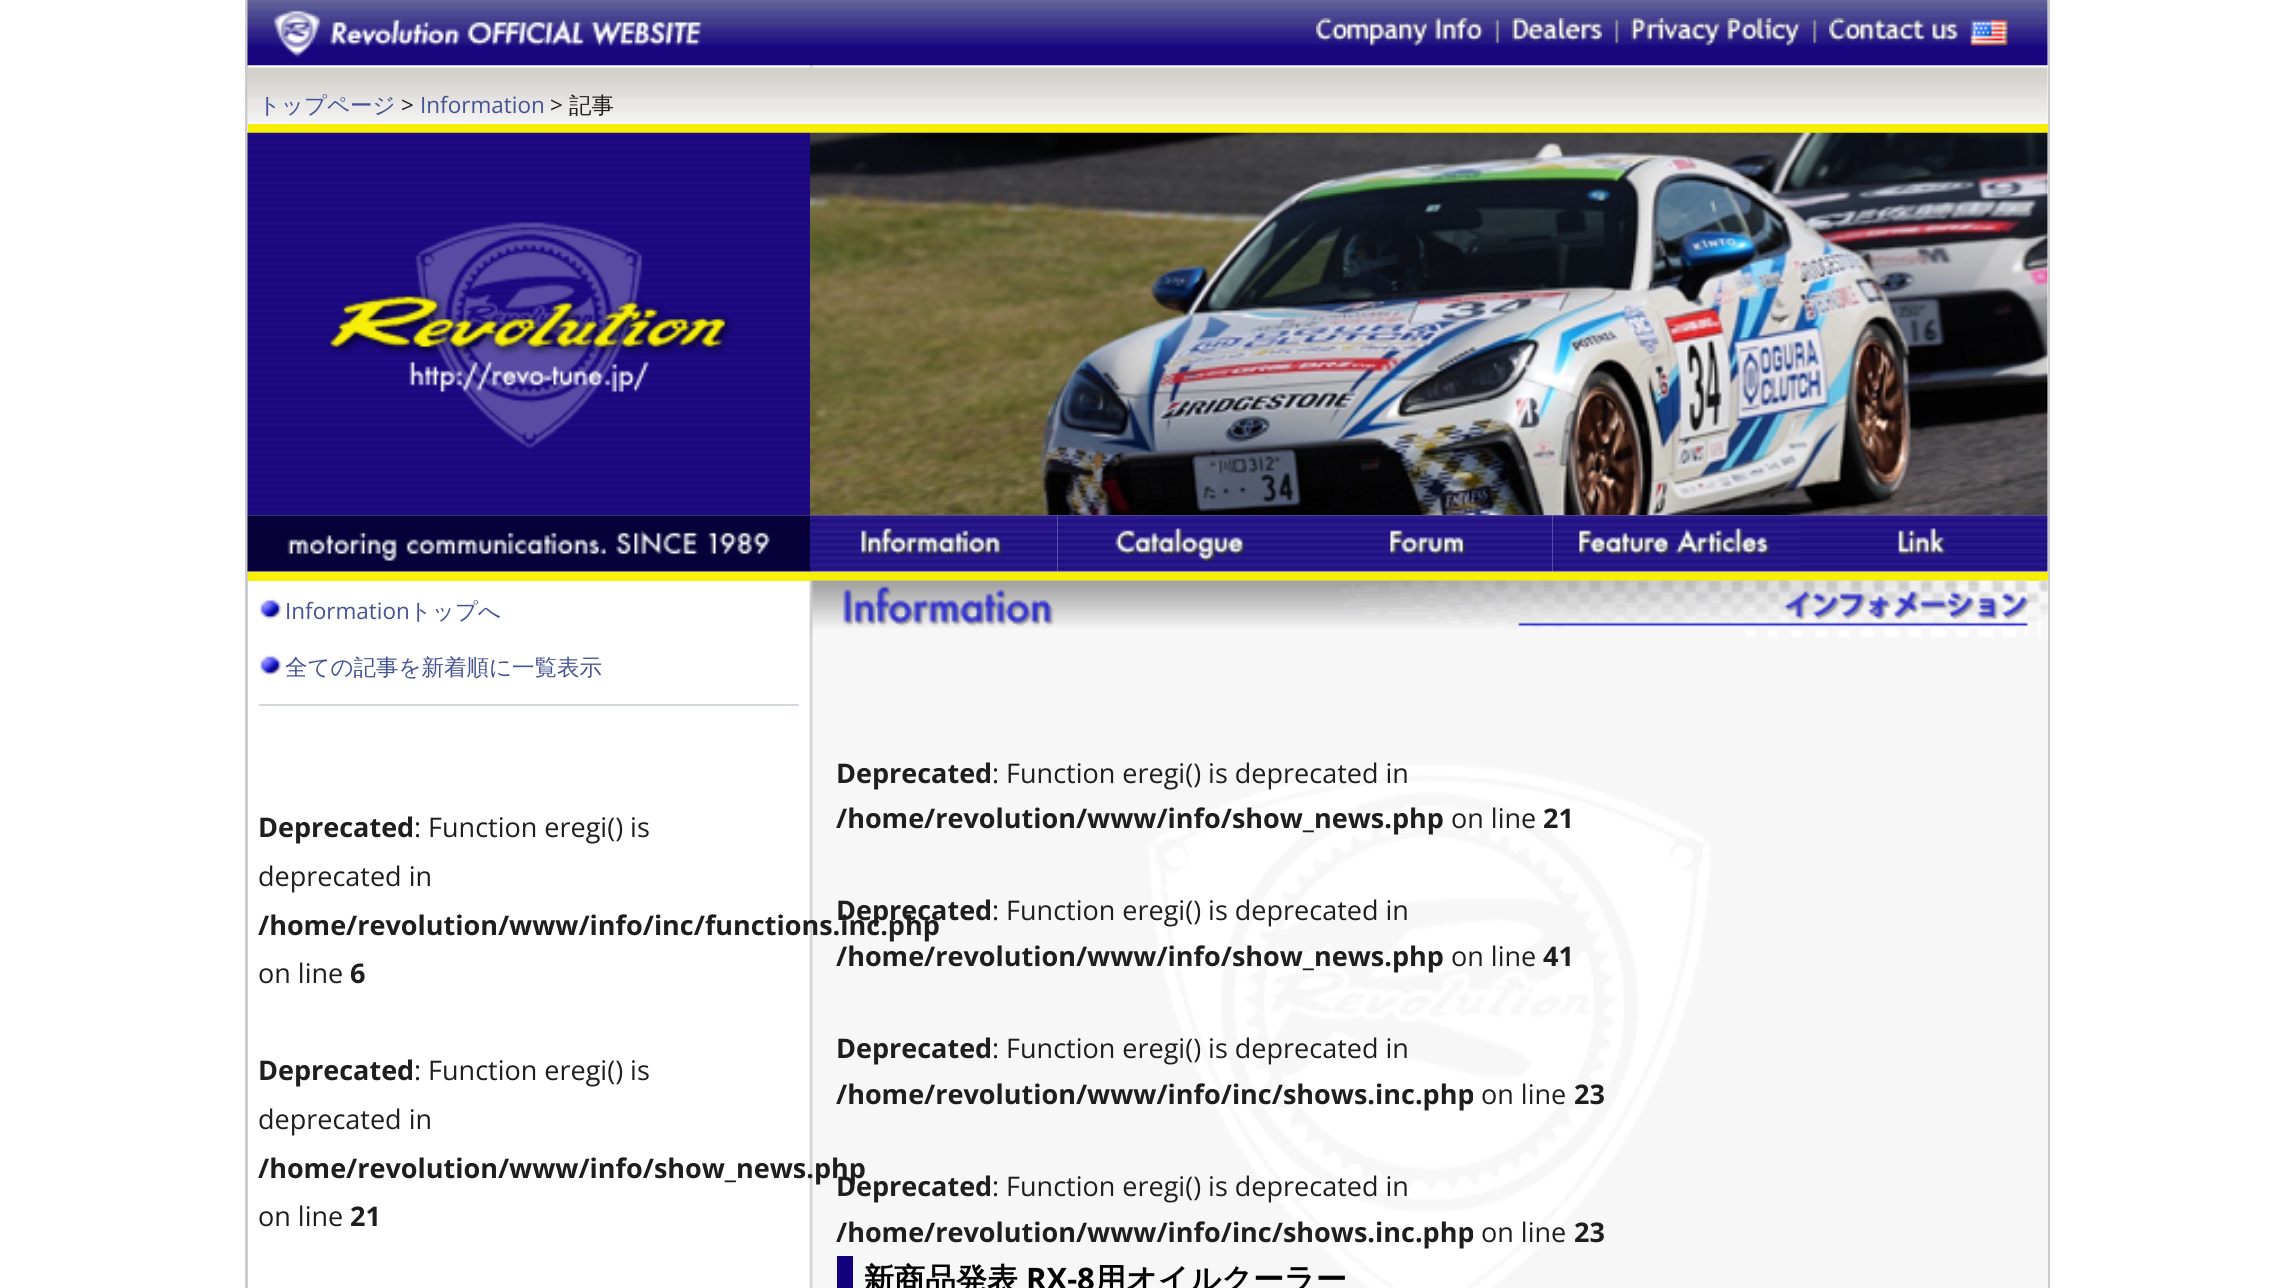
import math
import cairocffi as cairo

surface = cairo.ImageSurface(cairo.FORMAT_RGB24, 2292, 1288)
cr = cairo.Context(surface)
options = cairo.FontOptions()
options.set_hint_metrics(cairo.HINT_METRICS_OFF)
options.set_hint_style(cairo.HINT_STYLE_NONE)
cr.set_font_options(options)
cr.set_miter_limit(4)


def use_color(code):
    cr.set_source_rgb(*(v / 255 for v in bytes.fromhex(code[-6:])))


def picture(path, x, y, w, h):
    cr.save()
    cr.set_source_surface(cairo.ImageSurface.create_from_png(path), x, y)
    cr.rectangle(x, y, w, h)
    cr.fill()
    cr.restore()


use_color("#ffffff")
cr.paint()
picture("img1.png", 809, 0, 1239, 1288)
use_color("#cccccc")
cr.new_path()
cr.move_to(2050, 0)
cr.line_to(2050, 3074)
cr.line_to(2048, 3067)
cr.line_to(2048, 0)
cr.close_path()
cr.fill()
cr.new_path()
cr.move_to(245, 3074)
cr.line_to(245, 0)
cr.line_to(248, 0)
cr.line_to(248, 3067)
cr.close_path()
cr.fill()
picture("img2.png", 247, 0, 1801, 66)
picture("img3.png", 1316, 18, 167, 28)
picture("img4.png", 1495, 19, 5, 25)
picture("img5.png", 1512, 18, 90, 23)
picture("img6.png", 1615, 19, 4, 25)
picture("img7.png", 1631, 18, 169, 28)
picture("img8.png", 1813, 19, 4, 25)
picture("img9.png", 1829, 18, 129, 23)
picture("img10.png", 1970, 19, 38, 27)
picture("img11.png", 247, 67, 1801, 66)
use_color("#f7ef08")
cr.rectangle(248, 124, 1800, 9)
cr.fill()
cr.select_font_face("WenQuanYi Zen Hei Medium")
cr.set_font_size(22.5)
use_color("#445395")
cr.move_to(258, 113)
cr.show_text("トップページ")
cr.select_font_face("Open Sans")
use_color("#1e1e1e")
cr.move_to(401, 113)
cr.show_text(">")
use_color("#445395")
cr.move_to(420, 113)
cr.show_text("Information")
use_color("#1e1e1e")
cr.move_to(550, 113)
cr.show_text(">")
cr.select_font_face("WenQuanYi Zen Hei Medium")
cr.move_to(569, 113)
cr.show_text("記事")
use_color("#f7ef08")
cr.rectangle(248, 572, 1800, 9)
cr.fill()
picture("img12.png", 247, 132, 563, 384)
picture("img13.png", 810, 132, 1238, 384)
picture("img14.png", 247, 515, 563, 57)
picture("img15.png", 810, 515, 248, 57)
picture("img16.png", 1057, 515, 248, 57)
picture("img17.png", 1305, 515, 248, 57)
picture("img18.png", 1552, 515, 248, 57)
picture("img19.png", 1800, 515, 248, 57)
picture("img20.png", 259, 598, 23, 21)
cr.select_font_face("Open Sans")
use_color("#445395")
cr.move_to(285, 619)
cr.show_text("Information")
cr.select_font_face("WenQuanYi Zen Hei Medium")
cr.move_to(409, 619)
cr.show_text("トップへ")
picture("img21.png", 259, 655, 23, 20)
cr.move_to(285, 675)
cr.show_text("全ての記事を新着順に一覧表示")
use_color("#d1d7dc")
cr.rectangle(259, 704, 540, 2)
cr.fill()
cr.select_font_face("Open Sans", cairo.FONT_SLANT_NORMAL, cairo.FONT_WEIGHT_BOLD)
cr.set_font_size(27)
use_color("#1e1e1e")
cr.move_to(258, 837)
cr.show_text("Deprecated")
cr.select_font_face("Open Sans")
cr.move_to(414, 837)
cr.show_text(": Function eregi() is")
cr.move_to(258, 886)
cr.show_text("deprecated in")
cr.select_font_face("Open Sans", cairo.FONT_SLANT_NORMAL, cairo.FONT_WEIGHT_BOLD)
cr.move_to(258, 935)
cr.show_text("/home/revolution/www/info/inc/functions.inc.php")
cr.select_font_face("Open Sans")
cr.move_to(258, 983)
cr.show_text("on line")
cr.select_font_face("Open Sans", cairo.FONT_SLANT_NORMAL, cairo.FONT_WEIGHT_BOLD)
cr.move_to(350, 983)
cr.show_text("6")
cr.move_to(258, 1080)
cr.show_text("Deprecated")
cr.select_font_face("Open Sans")
cr.move_to(414, 1080)
cr.show_text(": Function eregi() is")
cr.move_to(258, 1129)
cr.show_text("deprecated in")
cr.select_font_face("Open Sans", cairo.FONT_SLANT_NORMAL, cairo.FONT_WEIGHT_BOLD)
cr.move_to(258, 1178)
cr.show_text("/home/revolution/www/info/show_news.php")
cr.select_font_face("Open Sans")
cr.move_to(258, 1226)
cr.show_text("on line")
cr.select_font_face("Open Sans", cairo.FONT_SLANT_NORMAL, cairo.FONT_WEIGHT_BOLD)
cr.move_to(350, 1226)
cr.show_text("21")
picture("img22.png", 810, 580, 1238, 57)
cr.move_to(836, 783)
cr.show_text("Deprecated")
cr.select_font_face("Open Sans")
cr.move_to(992, 783)
cr.show_text(": Function eregi() is deprecated in")
cr.select_font_face("Open Sans", cairo.FONT_SLANT_NORMAL, cairo.FONT_WEIGHT_BOLD)
cr.move_to(836, 828)
cr.show_text("/home/revolution/www/info/show_news.php")
cr.select_font_face("Open Sans")
cr.move_to(1451, 828)
cr.show_text("on line")
cr.select_font_face("Open Sans", cairo.FONT_SLANT_NORMAL, cairo.FONT_WEIGHT_BOLD)
cr.move_to(1543, 828)
cr.show_text("21")
cr.move_to(836, 920)
cr.show_text("Deprecated")
cr.select_font_face("Open Sans")
cr.move_to(992, 920)
cr.show_text(": Function eregi() is deprecated in")
cr.select_font_face("Open Sans", cairo.FONT_SLANT_NORMAL, cairo.FONT_WEIGHT_BOLD)
cr.move_to(836, 966)
cr.show_text("/home/revolution/www/info/show_news.php")
cr.select_font_face("Open Sans")
cr.move_to(1451, 966)
cr.show_text("on line")
cr.select_font_face("Open Sans", cairo.FONT_SLANT_NORMAL, cairo.FONT_WEIGHT_BOLD)
cr.move_to(1543, 966)
cr.show_text("41")
cr.move_to(836, 1058)
cr.show_text("Deprecated")
cr.select_font_face("Open Sans")
cr.move_to(992, 1058)
cr.show_text(": Function eregi() is deprecated in")
cr.select_font_face("Open Sans", cairo.FONT_SLANT_NORMAL, cairo.FONT_WEIGHT_BOLD)
cr.move_to(836, 1104)
cr.show_text("/home/revolution/www/info/inc/shows.inc.php")
cr.select_font_face("Open Sans")
cr.move_to(1481, 1104)
cr.show_text("on line")
cr.select_font_face("Open Sans", cairo.FONT_SLANT_NORMAL, cairo.FONT_WEIGHT_BOLD)
cr.move_to(1574, 1104)
cr.show_text("23")
cr.move_to(836, 1196)
cr.show_text("Deprecated")
cr.select_font_face("Open Sans")
cr.move_to(992, 1196)
cr.show_text(": Function eregi() is deprecated in")
cr.select_font_face("Open Sans", cairo.FONT_SLANT_NORMAL, cairo.FONT_WEIGHT_BOLD)
cr.move_to(836, 1242)
cr.show_text("/home/revolution/www/info/inc/shows.inc.php")
cr.select_font_face("Open Sans")
cr.move_to(1481, 1242)
cr.show_text("on line")
cr.select_font_face("Open Sans", cairo.FONT_SLANT_NORMAL, cairo.FONT_WEIGHT_BOLD)
cr.move_to(1574, 1242)
cr.show_text("23")
use_color("#13007c")
cr.rectangle(837, 1256, 16, 32)
cr.fill()
cr.select_font_face("WenQuanYi Zen Hei", cairo.FONT_SLANT_NORMAL, cairo.FONT_WEIGHT_BOLD)
cr.set_font_size(31)
use_color("#000000")
cr.move_to(863, 1290)
cr.show_text("新商品発表")
cr.select_font_face("Open Sans", cairo.FONT_SLANT_NORMAL, cairo.FONT_WEIGHT_BOLD)
cr.move_to(1026, 1290)
cr.show_text("RX-8")
cr.select_font_face("WenQuanYi Zen Hei", cairo.FONT_SLANT_NORMAL, cairo.FONT_WEIGHT_BOLD)
cr.move_to(1095, 1290)
cr.show_text("用オイルクーラー")
surface.write_to_png("result.png")
